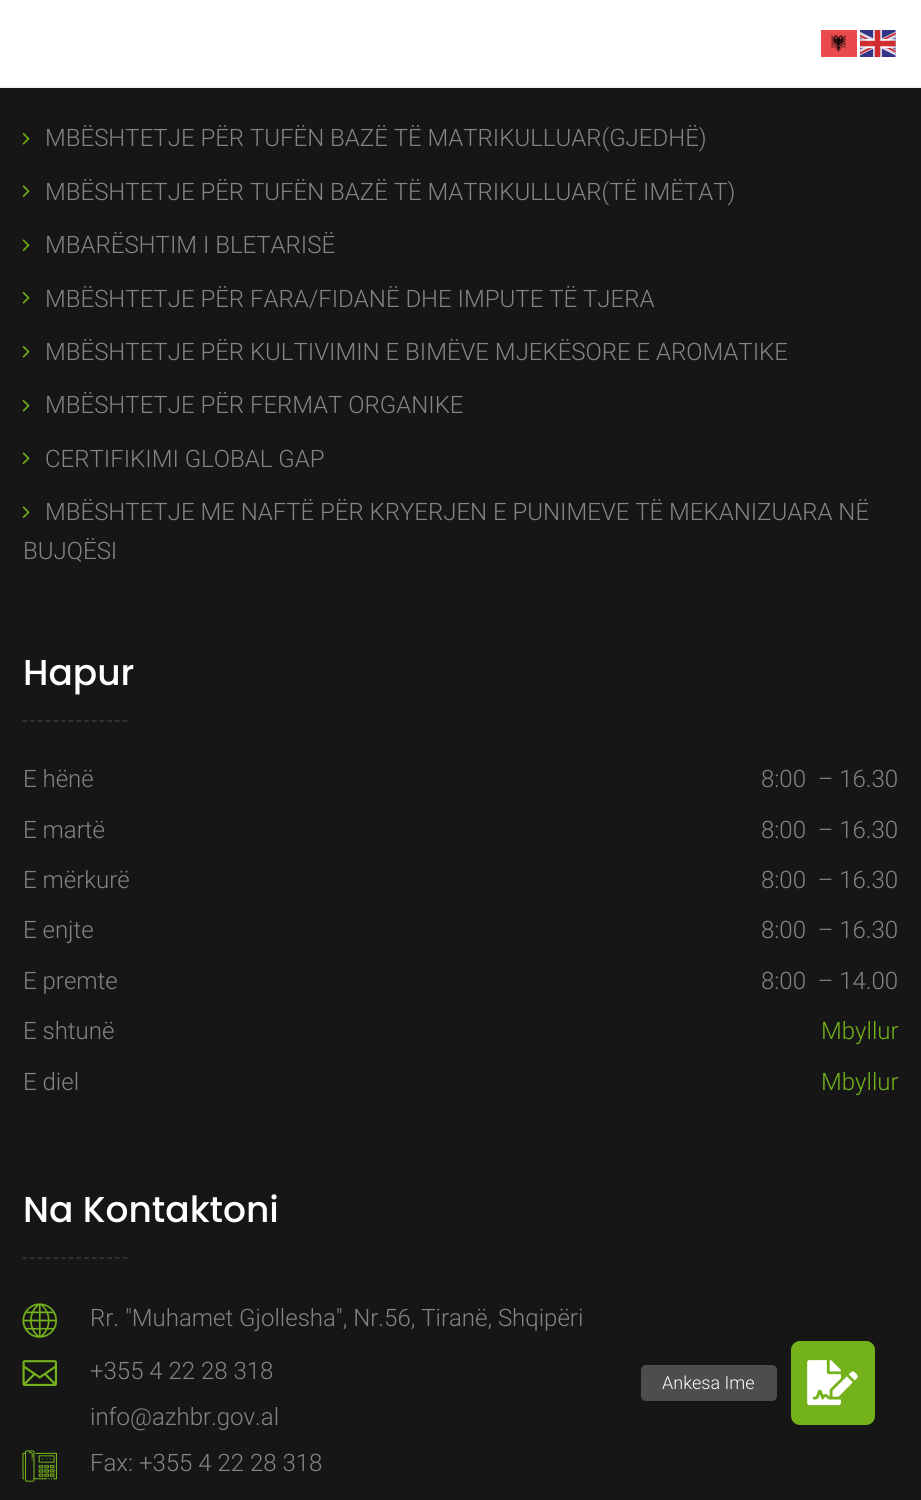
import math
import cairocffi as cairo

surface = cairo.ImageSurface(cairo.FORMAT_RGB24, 921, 1500)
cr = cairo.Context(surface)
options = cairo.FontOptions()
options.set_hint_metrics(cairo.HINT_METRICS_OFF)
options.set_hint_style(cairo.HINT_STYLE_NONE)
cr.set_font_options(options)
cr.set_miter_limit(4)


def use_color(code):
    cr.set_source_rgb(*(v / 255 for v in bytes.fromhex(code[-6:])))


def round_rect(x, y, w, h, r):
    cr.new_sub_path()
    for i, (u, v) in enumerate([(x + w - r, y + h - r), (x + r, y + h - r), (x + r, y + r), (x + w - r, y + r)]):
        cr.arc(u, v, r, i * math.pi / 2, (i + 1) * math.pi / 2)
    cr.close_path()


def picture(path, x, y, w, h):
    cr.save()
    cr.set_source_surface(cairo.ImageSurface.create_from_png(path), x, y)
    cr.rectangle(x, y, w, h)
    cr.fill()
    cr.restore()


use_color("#161616")
cr.paint()
use_color("#ffffff")
cr.rectangle(0, 0, 921, 86)
cr.fill()
use_color("#f2f2f2")
cr.rectangle(0, 86, 921, 2)
cr.fill()
picture("img1.png", 821, 30, 36, 27)
picture("img2.png", 860, 30, 36, 27)
picture("img3.png", 22, 133, 8, 12)
cr.select_font_face("Roboto Light")
cr.set_font_size(24)
use_color("#848484")
cr.move_to(45, 146)
cr.show_text("MBËSHTETJE PËR TUFËN BAZË TË MATRIKULLUAR(GJEDHË)")
picture("img4.png", 22, 185, 8, 12)
cr.move_to(45, 200)
cr.show_text("MBËSHTETJE PËR TUFËN BAZË TË MATRIKULLUAR(TË IMËTAT)")
picture("img4.png", 22, 239, 8, 12)
cr.move_to(45, 253)
cr.show_text("MBARËSHTIM I BLETARISË")
picture("img3.png", 22, 292, 8, 12)
cr.move_to(45, 307)
cr.show_text("MBËSHTETJE PËR FARA/FIDANË DHE IMPUTE TË TJERA")
picture("img3.png", 22, 346, 8, 12)
cr.move_to(45, 360)
cr.show_text("MBËSHTETJE PËR KULTIVIMIN E BIMËVE MJEKËSORE E AROMATIKE")
picture("img3.png", 22, 400, 8, 12)
cr.move_to(45, 413)
cr.show_text("MBËSHTETJE PËR FERMAT ORGANIKE")
picture("img4.png", 22, 452, 8, 12)
cr.move_to(45, 467)
cr.show_text("CERTIFIKIMI GLOBAL GAP")
picture("img4.png", 22, 506, 8, 12)
cr.move_to(45, 520)
cr.show_text("MBËSHTETJE ME NAFTË PËR KRYERJEN E PUNIMEVE TË MEKANIZUARA NË")
cr.move_to(23, 559)
cr.show_text("BUJQËSI")
cr.select_font_face("Poppins Medium")
cr.set_font_size(36)
use_color("#ffffff")
cr.move_to(23, 685)
cr.show_text("Hapur")
cr.new_path()
cr.move_to(22.5, 721)
cr.line_to(127.5, 721)
use_color("#393939")
cr.set_line_width(1.5)
cr.set_dash([4.5, 3.22])
cr.stroke()
cr.select_font_face("Roboto Light")
cr.set_font_size(24)
use_color("#848484")
cr.move_to(23, 787)
cr.show_text("E hënë")
cr.move_to(761, 787)
cr.show_text("8:00  – 16.30")
cr.move_to(23, 838)
cr.show_text("E martë")
cr.move_to(761, 838)
cr.show_text("8:00  – 16.30")
cr.move_to(23, 888)
cr.show_text("E mërkurë")
cr.move_to(761, 888)
cr.show_text("8:00  – 16.30")
cr.move_to(23, 938)
cr.show_text("E enjte")
cr.move_to(761, 938)
cr.show_text("8:00  – 16.30")
cr.move_to(23, 989)
cr.show_text("E premte")
cr.move_to(761, 989)
cr.show_text("8:00  – 14.00")
cr.move_to(23, 1039)
cr.show_text("E shtunë")
use_color("#73b21a")
cr.move_to(821, 1039)
cr.show_text("Mbyllur")
use_color("#848484")
cr.move_to(23, 1090)
cr.show_text("E diel")
use_color("#73b21a")
cr.move_to(821, 1090)
cr.show_text("Mbyllur")
cr.select_font_face("Poppins Medium")
cr.set_font_size(36)
use_color("#ffffff")
cr.move_to(23, 1222)
cr.show_text("Na Kontaktoni")
cr.new_path()
cr.move_to(22.5, 1258)
cr.line_to(127.5, 1258)
use_color("#393939")
cr.stroke()
picture("img5.png", 22, 1303, 35, 35)
cr.select_font_face("Roboto Light")
cr.set_font_size(24)
use_color("#848484")
cr.move_to(90, 1326)
cr.show_text("Rr. \"Muhamet Gjollesha\", Nr.56, Tiranë, Shqipëri")
picture("img6.png", 22, 1360, 35, 26)
cr.move_to(90, 1379)
cr.show_text("+355 4 22 28 318")
cr.move_to(90, 1425)
cr.show_text("info@azhbr.gov.al")
picture("img7.png", 22, 1450, 35, 32)
cr.move_to(90, 1471)
cr.show_text("Fax: +355 4 22 28 318")
use_color("#73b21a")
round_rect(791, 1341, 84, 84, 9)
cr.fill()
use_color("#4e4c4c")
round_rect(641, 1365, 136, 36, 5)
cr.fill()
cr.set_font_size(18)
use_color("#ffffff")
cr.move_to(662, 1389)
cr.show_text("Ankesa Ime")
picture("img8.png", 807, 1360, 51, 46)
surface.write_to_png("result.png")
